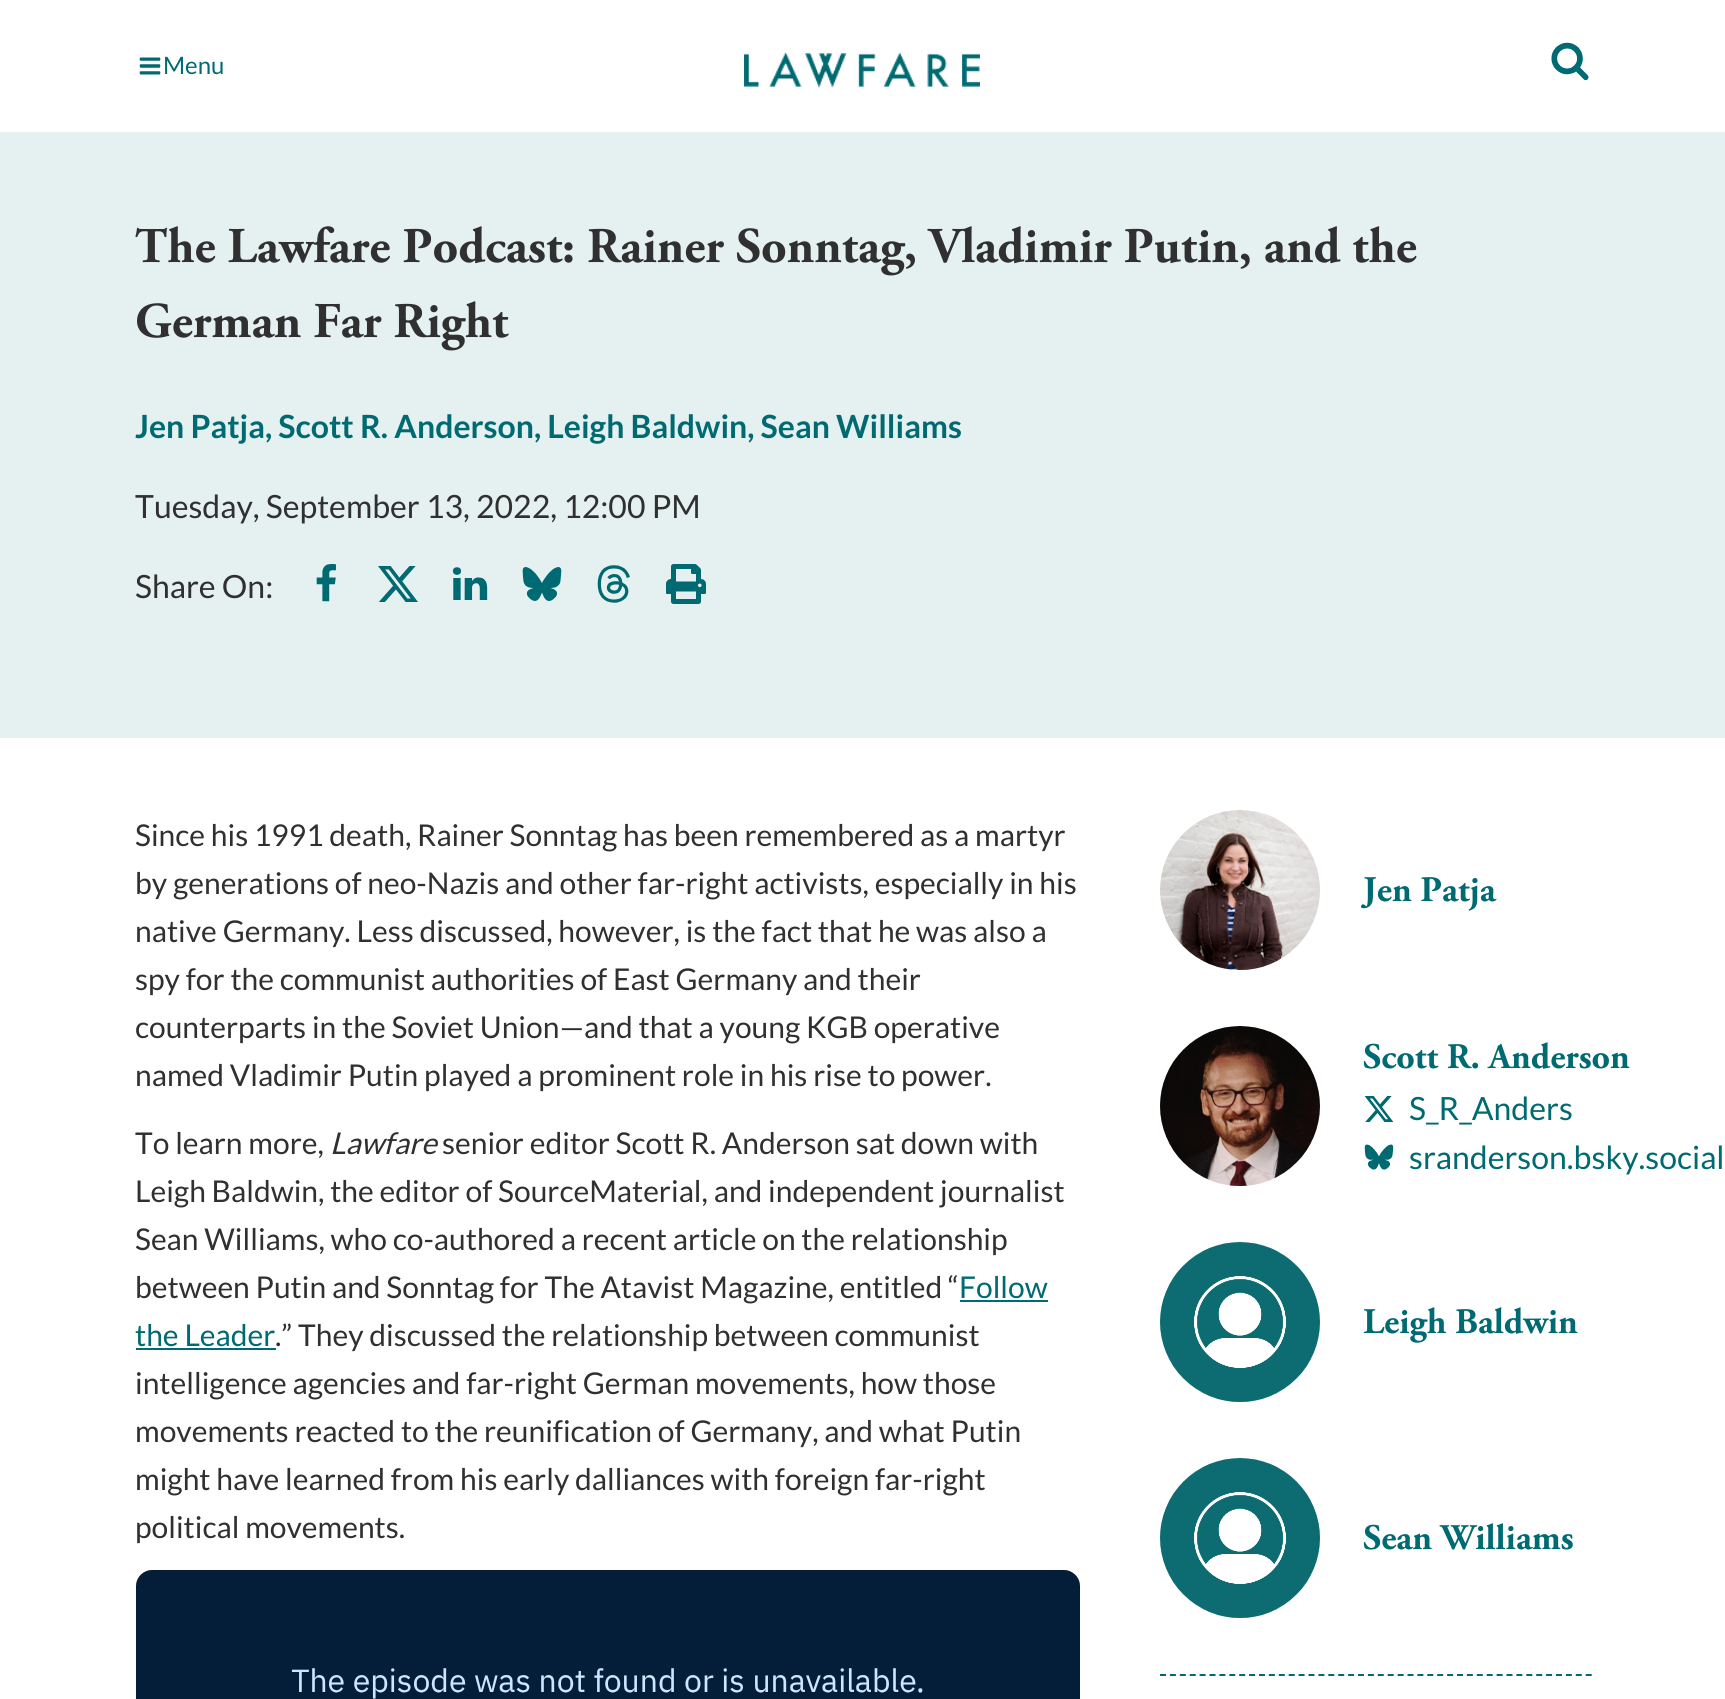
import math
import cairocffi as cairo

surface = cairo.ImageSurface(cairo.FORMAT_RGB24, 1725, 1699)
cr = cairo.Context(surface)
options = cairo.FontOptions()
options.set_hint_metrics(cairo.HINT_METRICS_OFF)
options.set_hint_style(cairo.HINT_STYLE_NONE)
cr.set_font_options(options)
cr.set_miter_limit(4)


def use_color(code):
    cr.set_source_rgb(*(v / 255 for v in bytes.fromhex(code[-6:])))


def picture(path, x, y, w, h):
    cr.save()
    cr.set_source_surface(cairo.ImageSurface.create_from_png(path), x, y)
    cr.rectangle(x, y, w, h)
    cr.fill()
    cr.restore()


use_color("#ffffff")
cr.paint()
picture("img1.png", 139, 57, 22, 18)
cr.select_font_face("Lato")
cr.set_font_size(24)
use_color("#006a72")
cr.move_to(163, 74)
cr.show_text("Menu")
picture("img2.png", 744, 52, 236, 36)
picture("img3.png", 1551, 42, 38, 38)
use_color("#e5f0f1")
cr.rectangle(0, 132, 1725, 606)
cr.fill()
cr.select_font_face("Adobe Garamond", cairo.FONT_SLANT_NORMAL, cairo.FONT_WEIGHT_BOLD)
cr.set_font_size(50)
use_color("#303030")
cr.move_to(135, 262)
cr.show_text("The Lawfare Podcast: Rainer Sonntag, Vladimir Putin, and the")
cr.move_to(135, 337)
cr.show_text("German Far Right")
cr.select_font_face("Lato", cairo.FONT_SLANT_NORMAL, cairo.FONT_WEIGHT_BOLD)
cr.set_font_size(32)
use_color("#006a72")
cr.move_to(135, 438)
cr.show_text("Jen Patja, Scott R. Anderson, Leigh Baldwin, Sean Williams")
cr.select_font_face("Lato")
use_color("#303030")
cr.move_to(135, 518)
cr.show_text("Tuesday, September 13, 2022, 12:00 PM")
cr.move_to(135, 598)
cr.show_text("Share On:")
picture("img4.png", 316, 564, 20, 38)
picture("img5.png", 378, 566, 40, 36)
picture("img6.png", 452, 567, 36, 33)
picture("img7.png", 522, 567, 40, 34)
picture("img8.png", 597, 565, 33, 38)
picture("img9.png", 666, 564, 40, 40)
cr.set_font_size(30)
cr.move_to(135, 846)
cr.show_text("Since his 1991 death, Rainer Sonntag has been remembered as a martyr")
cr.move_to(135, 894)
cr.show_text("by generations of neo-Nazis and other far-right activists, especially in his")
cr.move_to(135, 942)
cr.show_text("native Germany. Less discussed, however, is the fact that he was also a")
cr.move_to(135, 990)
cr.show_text("spy for the communist authorities of East Germany and their")
cr.move_to(135, 1038)
cr.show_text("counterparts in the Soviet Union—and that a young KGB operative")
cr.move_to(135, 1086)
cr.show_text("named Vladimir Putin played a prominent role in his rise to power.")
cr.move_to(135, 1154)
cr.show_text("To learn more,")
cr.select_font_face("Lato", cairo.FONT_SLANT_ITALIC)
cr.move_to(330, 1154)
cr.show_text("Lawfare")
cr.select_font_face("Lato")
cr.move_to(442, 1154)
cr.show_text("senior editor Scott R. Anderson sat down with")
cr.move_to(135, 1202)
cr.show_text("Leigh Baldwin, the editor of SourceMaterial, and independent journalist")
cr.move_to(135, 1250)
cr.show_text("Sean Williams, who co-authored a recent article on the relationship")
cr.move_to(135, 1298)
cr.show_text("between Putin and Sonntag for The Atavist Magazine, entitled “")
use_color("#006a72")
cr.move_to(959, 1298)
cr.show_text("Follow")
cr.rectangle(960, 1300, 88, 2)
cr.fill()
cr.move_to(135, 1346)
cr.show_text("the Leader")
cr.rectangle(136, 1348, 140, 2)
cr.fill()
use_color("#303030")
cr.move_to(275, 1346)
cr.show_text(".” They discussed the relationship between communist")
cr.move_to(135, 1394)
cr.show_text("intelligence agencies and far-right German movements, how those")
cr.move_to(135, 1442)
cr.show_text("movements reacted to the reunification of Germany, and what Putin")
cr.move_to(135, 1490)
cr.show_text("might have learned from his early dalliances with foreign far-right")
cr.move_to(135, 1538)
cr.show_text("political movements.")
picture("img10.png", 136, 1570, 944, 129)
picture("img11.png", 1160, 810, 160, 160)
cr.select_font_face("Adobe Garamond", cairo.FONT_SLANT_NORMAL, cairo.FONT_WEIGHT_BOLD)
cr.set_font_size(36)
use_color("#006a72")
cr.move_to(1363, 901)
cr.show_text("Jen Patja")
picture("img12.png", 1160, 1026, 160, 160)
cr.move_to(1363, 1068)
cr.show_text("Scott R. Anderson")
picture("img13.png", 1364, 1096, 30, 26)
cr.select_font_face("Lato")
cr.set_font_size(32)
cr.move_to(1409, 1120)
cr.show_text("S_R_Anders")
picture("img14.png", 1364, 1144, 30, 26)
cr.move_to(1409, 1169)
cr.show_text("sranderson.bsky.social")
picture("img15.png", 1160, 1242, 160, 160)
cr.select_font_face("Adobe Garamond", cairo.FONT_SLANT_NORMAL, cairo.FONT_WEIGHT_BOLD)
cr.set_font_size(36)
cr.move_to(1363, 1333)
cr.show_text("Leigh Baldwin")
picture("img16.png", 1160, 1458, 160, 160)
cr.move_to(1363, 1549)
cr.show_text("Sean Williams")
cr.new_path()
cr.move_to(1160, 1675)
cr.line_to(1592, 1675)
cr.set_dash([6, 3.9])
cr.stroke()
surface.write_to_png("result.png")
